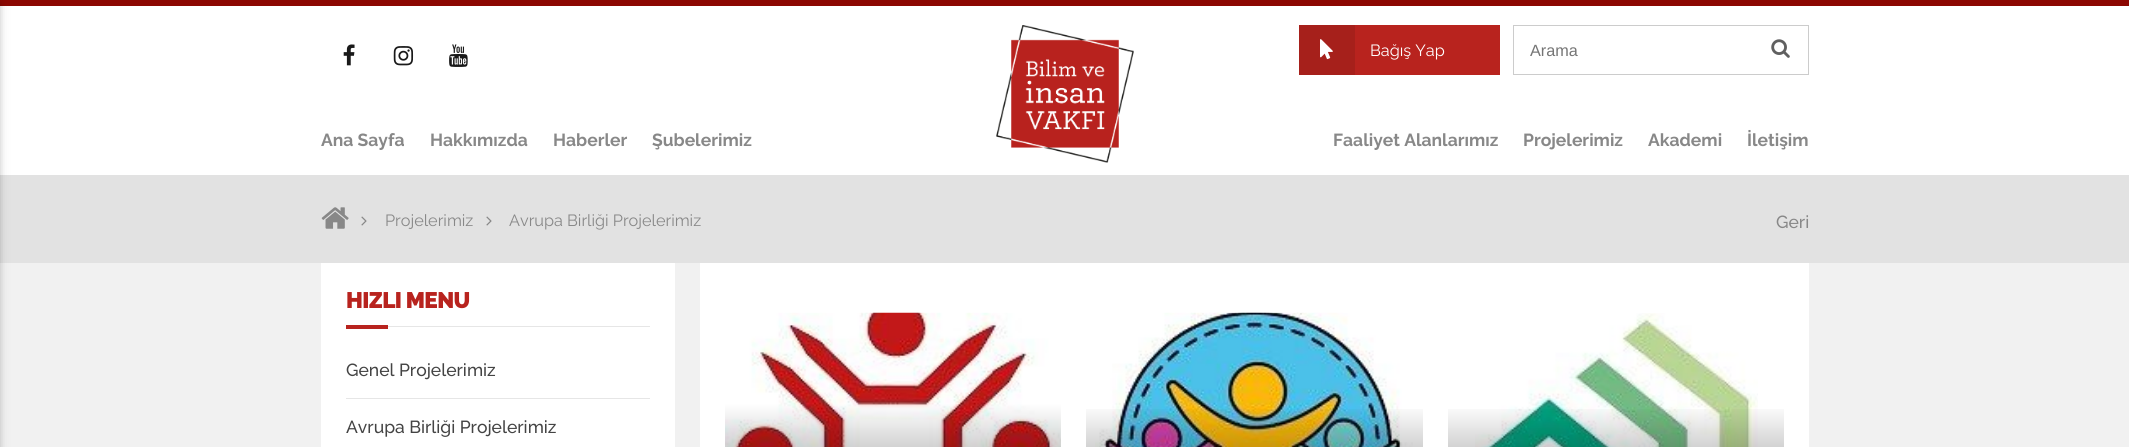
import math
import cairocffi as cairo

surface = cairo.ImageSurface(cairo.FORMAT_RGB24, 2129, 447)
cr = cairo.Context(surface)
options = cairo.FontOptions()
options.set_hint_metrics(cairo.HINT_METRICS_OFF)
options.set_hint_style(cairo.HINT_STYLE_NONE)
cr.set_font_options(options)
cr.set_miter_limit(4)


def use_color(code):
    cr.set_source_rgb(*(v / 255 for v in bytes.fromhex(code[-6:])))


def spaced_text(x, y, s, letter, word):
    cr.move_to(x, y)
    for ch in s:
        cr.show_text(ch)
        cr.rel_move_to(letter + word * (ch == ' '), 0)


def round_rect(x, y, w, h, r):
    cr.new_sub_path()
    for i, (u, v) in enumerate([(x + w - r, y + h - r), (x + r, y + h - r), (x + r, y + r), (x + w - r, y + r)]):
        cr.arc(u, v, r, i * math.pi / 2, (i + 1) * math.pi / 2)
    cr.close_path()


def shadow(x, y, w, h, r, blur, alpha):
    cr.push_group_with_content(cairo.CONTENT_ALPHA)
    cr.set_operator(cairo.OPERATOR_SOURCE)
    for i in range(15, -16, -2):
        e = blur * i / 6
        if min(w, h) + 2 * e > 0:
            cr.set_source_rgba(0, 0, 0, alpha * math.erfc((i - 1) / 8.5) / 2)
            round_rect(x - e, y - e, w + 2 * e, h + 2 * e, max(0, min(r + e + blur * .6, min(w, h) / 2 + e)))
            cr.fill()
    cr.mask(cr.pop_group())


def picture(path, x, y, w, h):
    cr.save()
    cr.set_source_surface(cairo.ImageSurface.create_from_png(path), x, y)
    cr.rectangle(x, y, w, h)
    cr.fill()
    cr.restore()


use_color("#f1f1f1")
cr.paint()
use_color("#8c0702")
cr.rectangle(0, 0, 2129, 6)
cr.fill()
use_color("#ffffff")
cr.rectangle(0, 6, 2129, 169)
cr.fill()
use_color("#e2e2e2")
cr.rectangle(0, 175, 2129, 88)
cr.fill()
use_color("#000000")
shadow(-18, 3, 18, 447, 0, 6, 0.1)
shadow(-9, 3, 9, 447, 0, 3, 0.15)
picture("img1.png", 343, 44, 12, 22)
picture("img2.png", 393, 46, 21, 20)
picture("img3.png", 449, 44, 19, 23)
picture("img4.png", 996, 25, 138, 138)
use_color("#b8231e")
cr.rectangle(1355, 25, 145, 50)
cr.fill()
use_color("#a6201b")
cr.rectangle(1299, 25, 56, 50)
cr.fill()
picture("img5.png", 1320, 39, 13, 21)
cr.select_font_face("Raleway")
cr.set_font_size(16.25)
use_color("#ffffff")
cr.move_to(1370, 56)
cr.show_text("Bağış Yap")
cr.rectangle(1513.5, 25.5, 295, 49)
use_color("#cccccc")
cr.set_line_width(1)
cr.stroke()
cr.select_font_face("Liberation Sans")
use_color("#757575")
cr.move_to(1530, 56)
cr.show_text("Arama")
picture("img6.png", 1771, 39, 19, 19)
cr.select_font_face("Raleway", cairo.FONT_SLANT_NORMAL, cairo.FONT_WEIGHT_BOLD)
cr.set_font_size(17.5)
use_color("#888888")
cr.move_to(321, 146)
cr.show_text("Ana Sayfa")
cr.move_to(430, 146)
cr.show_text("Hakkımızda")
cr.move_to(553, 146)
cr.show_text("Haberler")
cr.move_to(652, 146)
cr.show_text("Şubelerimiz")
cr.move_to(1333, 146)
cr.show_text("Faaliyet Alanlarımız")
cr.move_to(1523, 146)
cr.show_text("Projelerimiz")
cr.move_to(1648, 146)
cr.show_text("Akademi")
cr.move_to(1747, 146)
cr.show_text("İletişim")
picture("img7.png", 321, 207, 28, 22)
picture("img8.png", 361, 216, 6, 10)
cr.select_font_face("Raleway")
cr.set_font_size(16.25)
cr.move_to(385, 226)
cr.show_text("Projelerimiz")
picture("img8.png", 486, 216, 6, 10)
cr.move_to(509, 226)
cr.show_text("Avrupa Birliği Projelerimiz")
cr.select_font_face("Raleway Medium")
cr.set_font_size(17.5)
cr.move_to(1776, 228)
cr.show_text("Geri")
use_color("#ffffff")
cr.rectangle(321, 263, 354, 184)
cr.fill()
use_color("#e6e6e6")
cr.rectangle(388, 326, 262, 1)
cr.fill()
cr.select_font_face("Raleway Black")
cr.set_font_size(22.5)
use_color("#b8231e")
spaced_text(346, 308, "HIZLI MENU", -0.6, 0)
cr.rectangle(346, 325, 42, 4)
cr.fill()
use_color("#e6e6e6")
cr.rectangle(346, 398, 304, 1)
cr.fill()
cr.select_font_face("Raleway Medium")
cr.set_font_size(17.5)
use_color("#444444")
cr.move_to(346, 376)
cr.show_text("Genel Projelerimiz")
cr.move_to(346, 433)
cr.show_text("Avrupa Birliği Projelerimiz")
use_color("#ffffff")
cr.rectangle(700, 263, 1109, 184)
cr.fill()
picture("img9.png", 725, 312, 336, 135)
picture("img10.png", 1095, 312, 318, 135)
gradient = cairo.LinearGradient(1254, 404, 1254, 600)
gradient.add_color_stop_rgba(0, 0, 0, 0, 0)
gradient.add_color_stop_rgba(1, 0, 0, 0, 0.8)
cr.set_source(gradient)
cr.rectangle(1086, 409, 337, 38)
cr.fill()
picture("img11.png", 1475, 313, 283, 134)
gradient = cairo.LinearGradient(1616, 404, 1616, 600)
gradient.add_color_stop_rgba(0, 0, 0, 0, 0)
gradient.add_color_stop_rgba(1, 0, 0, 0, 0.8)
cr.set_source(gradient)
cr.rectangle(1448, 409, 336, 38)
cr.fill()
surface.write_to_png("result.png")
